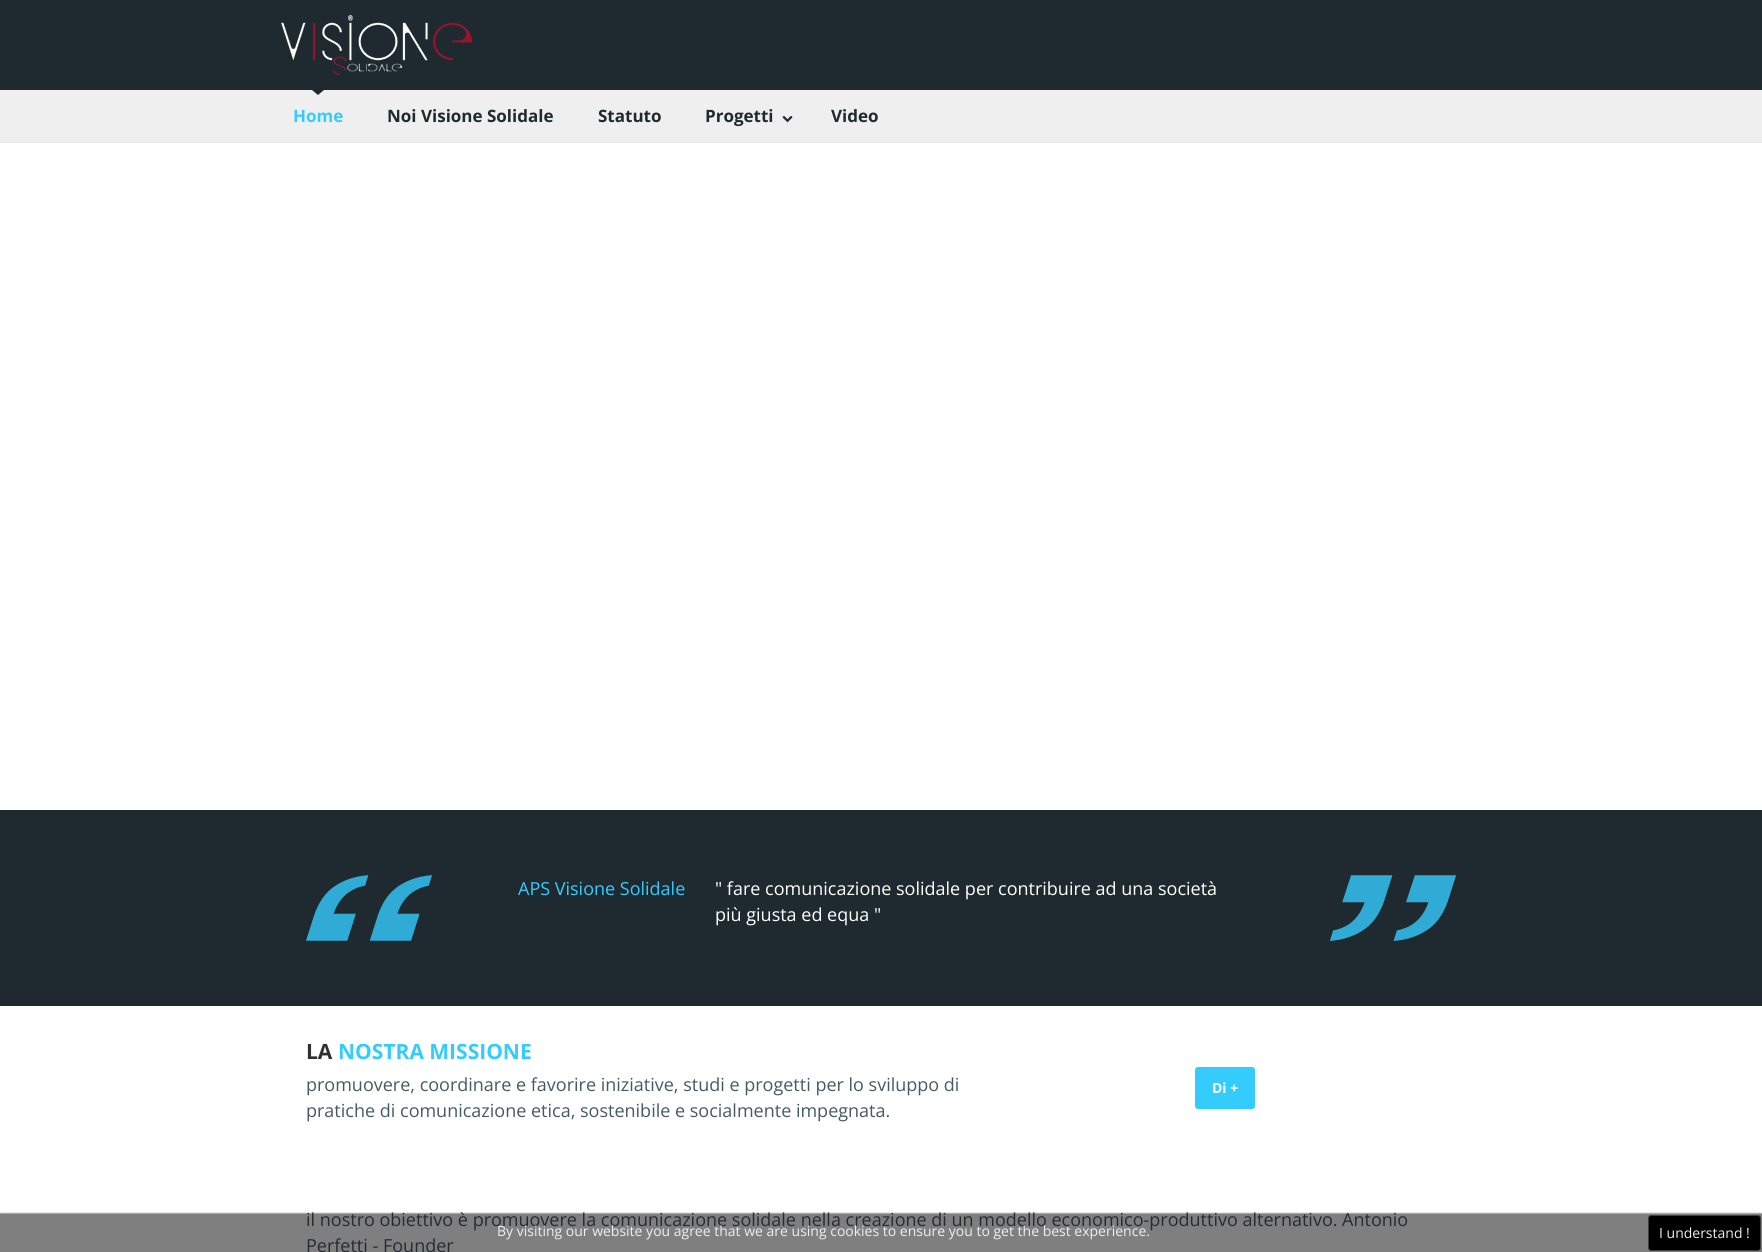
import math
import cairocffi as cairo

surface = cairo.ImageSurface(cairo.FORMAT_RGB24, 1762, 1252)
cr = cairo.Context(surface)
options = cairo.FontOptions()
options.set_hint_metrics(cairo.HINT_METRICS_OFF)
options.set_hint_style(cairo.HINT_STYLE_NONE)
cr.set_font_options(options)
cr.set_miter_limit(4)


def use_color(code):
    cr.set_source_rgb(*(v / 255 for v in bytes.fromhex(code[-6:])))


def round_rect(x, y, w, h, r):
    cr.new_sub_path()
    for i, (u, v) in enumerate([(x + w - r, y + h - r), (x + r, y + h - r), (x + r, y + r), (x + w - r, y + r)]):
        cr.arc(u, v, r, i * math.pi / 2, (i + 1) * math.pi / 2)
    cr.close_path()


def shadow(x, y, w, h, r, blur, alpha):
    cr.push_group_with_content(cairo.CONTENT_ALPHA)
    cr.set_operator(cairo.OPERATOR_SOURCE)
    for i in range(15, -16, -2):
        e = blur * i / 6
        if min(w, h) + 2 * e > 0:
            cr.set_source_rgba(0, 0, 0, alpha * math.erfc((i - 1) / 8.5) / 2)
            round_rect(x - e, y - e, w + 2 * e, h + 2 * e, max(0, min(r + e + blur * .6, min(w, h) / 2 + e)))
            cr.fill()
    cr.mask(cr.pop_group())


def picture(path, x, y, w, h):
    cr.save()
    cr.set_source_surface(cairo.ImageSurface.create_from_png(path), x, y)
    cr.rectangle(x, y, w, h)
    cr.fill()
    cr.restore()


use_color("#ffffff")
cr.paint()
use_color("#1f2a30")
cr.rectangle(0, 0, 1762, 90)
cr.fill()
picture("img1.png", 281, 15, 191, 60)
use_color("#efefef")
cr.rectangle(0, 90, 1762, 52)
cr.fill()
use_color("#e7e7e7")
cr.rectangle(0, 142, 1762, 1)
cr.fill()
picture("img2.png", 312, 90, 12, 5)
cr.select_font_face("Open Sans", cairo.FONT_SLANT_NORMAL, cairo.FONT_WEIGHT_BOLD)
cr.set_font_size(17)
use_color("#34ccff")
cr.move_to(293, 122)
cr.show_text("Home")
use_color("#1f2a30")
cr.move_to(387, 122)
cr.show_text("Noi Visione Solidale")
cr.move_to(598, 122)
cr.show_text("Statuto")
cr.move_to(705, 122)
cr.show_text("Progetti")
picture("img3.png", 782, 115, 11, 8)
cr.move_to(831, 122)
cr.show_text("Video")
cr.rectangle(0, 810, 1762, 196)
cr.fill()
picture("img4.png", 306, 875, 126, 66)
cr.select_font_face("Open Sans")
cr.set_font_size(18)
use_color("#34ccff")
cr.move_to(518, 895)
cr.show_text("APS Visione Solidale")
use_color("#ffffff")
cr.move_to(715, 895)
cr.show_text("\" fare comunicazione solidale per contribuire ad una società")
cr.move_to(715, 921)
cr.show_text("più giusta ed equa \"")
picture("img5.png", 1330, 875, 126, 66)
cr.select_font_face("Open Sans", cairo.FONT_SLANT_NORMAL, cairo.FONT_WEIGHT_BOLD)
cr.set_font_size(21)
use_color("#303030")
cr.move_to(306, 1059)
cr.show_text("LA")
use_color("#34ccff")
cr.move_to(338, 1059)
cr.show_text("NOSTRA MISSIONE")
cr.select_font_face("Open Sans")
cr.set_font_size(18)
use_color("#455a64")
cr.move_to(306, 1091)
cr.show_text("promuovere, coordinare e favorire iniziative, studi e progetti per lo sviluppo di")
cr.move_to(306, 1117)
cr.show_text("pratiche di comunicazione etica, sostenibile e socialmente impegnata.")
use_color("#34ccff")
round_rect(1195, 1067, 60, 42, 3)
cr.fill()
cr.select_font_face("Open Sans", cairo.FONT_SLANT_NORMAL, cairo.FONT_WEIGHT_BOLD)
cr.set_font_size(14)
use_color("#ffffff")
cr.move_to(1212, 1093)
cr.show_text("Di +")
cr.select_font_face("Open Sans")
cr.set_font_size(18)
use_color("#455a64")
cr.move_to(306, 1226)
cr.show_text("il nostro obiettivo è promuovere la comunicazione solidale nella creazione di un modello economico-produttivo alternativo. Antonio")
cr.move_to(306, 1252)
cr.show_text("Perfetti - Founder")
cr.save()
cr.rectangle(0, 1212, 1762, 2)
cr.clip()
use_color("#000000")
shadow(0, 1214, 1762, 38, 0, 1, 1)
cr.restore()
cr.set_source_rgba(0, 0, 0, 0.5)
cr.rectangle(0, 1214, 1762, 38)
cr.fill()
cr.set_font_size(14)
use_color("#eeeeee")
cr.move_to(497, 1236)
cr.show_text("By visiting our website you agree that we are using cookies to ensure you to get the best experience.")
use_color("#000000")
round_rect(1648.5, 1215.5, 112, 35, 2.5)
cr.fill_preserve()
use_color("#404040")
cr.set_line_width(1)
cr.stroke()
use_color("#eeeeee")
cr.move_to(1659, 1238)
cr.show_text("I understand !")
surface.write_to_png("result.png")
